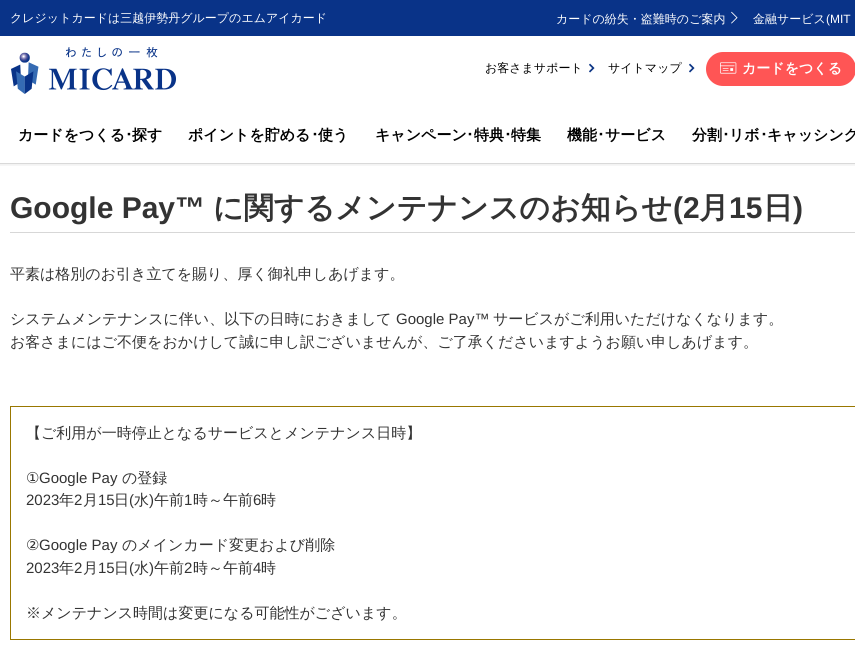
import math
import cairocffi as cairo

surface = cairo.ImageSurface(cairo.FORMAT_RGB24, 855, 665)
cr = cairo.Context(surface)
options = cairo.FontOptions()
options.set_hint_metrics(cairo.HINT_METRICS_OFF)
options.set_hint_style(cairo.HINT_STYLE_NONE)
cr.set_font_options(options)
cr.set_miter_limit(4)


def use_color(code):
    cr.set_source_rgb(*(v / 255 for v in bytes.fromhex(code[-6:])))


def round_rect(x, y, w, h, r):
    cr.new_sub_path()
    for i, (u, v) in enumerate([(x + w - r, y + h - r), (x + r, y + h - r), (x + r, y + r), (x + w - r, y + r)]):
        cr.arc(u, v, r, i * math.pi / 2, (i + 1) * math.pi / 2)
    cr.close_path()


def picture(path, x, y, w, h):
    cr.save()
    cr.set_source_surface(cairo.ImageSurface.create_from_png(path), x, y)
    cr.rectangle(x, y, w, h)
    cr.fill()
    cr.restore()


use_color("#ffffff")
cr.paint()
use_color("#093388")
cr.rectangle(0, 0, 855, 36)
cr.fill()
cr.select_font_face("WenQuanYi Zen Hei Medium")
cr.set_font_size(12)
use_color("#ffffff")
cr.move_to(10, 22)
cr.show_text("クレジットカードは三越伊勢丹グループのエムアイカード")
cr.move_to(556, 23)
cr.show_text("カードの紛失・盗難時のご案内")
picture("img1.png", 731, 11, 7, 13)
cr.move_to(753, 23)
cr.show_text("金融サービス")
cr.select_font_face("Liberation Sans")
cr.move_to(826, 23)
cr.show_text("(MIT")
picture("img2.png", 11, 47, 165, 47)
cr.select_font_face("WenQuanYi Zen Hei Medium")
use_color("#000000")
cr.move_to(485, 72)
cr.show_text("お客さまサポート")
picture("img3.png", 589, 63, 6, 10)
cr.move_to(608, 72)
cr.show_text("サイトマップ")
picture("img3.png", 689, 63, 6, 10)
use_color("#ff5555")
round_rect(706, 52, 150, 34, 17)
cr.fill()
picture("img4.png", 720, 62, 17, 12)
cr.select_font_face("WenQuanYi Zen Hei", cairo.FONT_SLANT_NORMAL, cairo.FONT_WEIGHT_BOLD)
cr.set_font_size(14)
use_color("#ffffff")
cr.move_to(742, 73)
cr.show_text("カードをつくる")
use_color("#e7e7e7")
cr.rectangle(0, 163, 855, 1)
cr.fill()
cr.set_font_size(15)
use_color("#000000")
cr.move_to(18, 140)
cr.show_text("カードをつくる")
cr.select_font_face("IPAGothic", cairo.FONT_SLANT_NORMAL, cairo.FONT_WEIGHT_BOLD)
cr.move_to(125, 140)
cr.show_text("･")
cr.select_font_face("WenQuanYi Zen Hei", cairo.FONT_SLANT_NORMAL, cairo.FONT_WEIGHT_BOLD)
cr.move_to(132, 140)
cr.show_text("探す")
cr.move_to(188, 140)
cr.show_text("ポイントを貯める")
cr.select_font_face("IPAGothic", cairo.FONT_SLANT_NORMAL, cairo.FONT_WEIGHT_BOLD)
cr.move_to(311, 140)
cr.show_text("･")
cr.select_font_face("WenQuanYi Zen Hei", cairo.FONT_SLANT_NORMAL, cairo.FONT_WEIGHT_BOLD)
cr.move_to(318, 140)
cr.show_text("使う")
cr.move_to(375, 140)
cr.show_text("キャンペーン")
cr.select_font_face("IPAGothic", cairo.FONT_SLANT_NORMAL, cairo.FONT_WEIGHT_BOLD)
cr.move_to(466, 140)
cr.show_text("･")
cr.select_font_face("WenQuanYi Zen Hei", cairo.FONT_SLANT_NORMAL, cairo.FONT_WEIGHT_BOLD)
cr.move_to(474, 140)
cr.show_text("特典")
cr.select_font_face("IPAGothic", cairo.FONT_SLANT_NORMAL, cairo.FONT_WEIGHT_BOLD)
cr.move_to(504, 140)
cr.show_text("･")
cr.select_font_face("WenQuanYi Zen Hei", cairo.FONT_SLANT_NORMAL, cairo.FONT_WEIGHT_BOLD)
cr.move_to(511, 140)
cr.show_text("特集")
cr.move_to(567, 140)
cr.show_text("機能")
cr.select_font_face("IPAGothic", cairo.FONT_SLANT_NORMAL, cairo.FONT_WEIGHT_BOLD)
cr.move_to(597, 140)
cr.show_text("･")
cr.select_font_face("WenQuanYi Zen Hei", cairo.FONT_SLANT_NORMAL, cairo.FONT_WEIGHT_BOLD)
cr.move_to(605, 140)
cr.show_text("サービス")
cr.move_to(692, 140)
cr.show_text("分割")
cr.select_font_face("IPAGothic", cairo.FONT_SLANT_NORMAL, cairo.FONT_WEIGHT_BOLD)
cr.move_to(722, 140)
cr.show_text("･")
cr.select_font_face("WenQuanYi Zen Hei", cairo.FONT_SLANT_NORMAL, cairo.FONT_WEIGHT_BOLD)
cr.move_to(729, 140)
cr.show_text("リボ")
cr.select_font_face("IPAGothic", cairo.FONT_SLANT_NORMAL, cairo.FONT_WEIGHT_BOLD)
cr.move_to(760, 140)
cr.show_text("･")
cr.select_font_face("WenQuanYi Zen Hei", cairo.FONT_SLANT_NORMAL, cairo.FONT_WEIGHT_BOLD)
cr.move_to(767, 140)
cr.show_text("キャッシング")
gradient = cairo.LinearGradient(510, 163, 510, 168)
gradient.add_color_stop_rgba(0, 0, 0, 0, 0.07)
gradient.add_color_stop_rgba(1, 0, 0, 0, 0)
cr.set_source(gradient)
cr.rectangle(0, 163, 855, 3)
cr.fill()
use_color("#d7d7d7")
cr.rectangle(10, 232, 845, 1)
cr.fill()
cr.select_font_face("Liberation Sans", cairo.FONT_SLANT_NORMAL, cairo.FONT_WEIGHT_BOLD)
cr.set_font_size(30)
use_color("#333333")
cr.move_to(10, 218)
cr.show_text("Google Pay™")
cr.select_font_face("WenQuanYi Zen Hei", cairo.FONT_SLANT_NORMAL, cairo.FONT_WEIGHT_BOLD)
cr.move_to(213, 218)
cr.show_text("に関するメンテナンスのお知らせ")
cr.select_font_face("Liberation Sans", cairo.FONT_SLANT_NORMAL, cairo.FONT_WEIGHT_BOLD)
cr.move_to(673, 218)
cr.show_text("(2")
cr.select_font_face("WenQuanYi Zen Hei", cairo.FONT_SLANT_NORMAL, cairo.FONT_WEIGHT_BOLD)
cr.move_to(699, 218)
cr.show_text("月")
cr.select_font_face("Liberation Sans", cairo.FONT_SLANT_NORMAL, cairo.FONT_WEIGHT_BOLD)
cr.move_to(729, 218)
cr.show_text("15")
cr.select_font_face("WenQuanYi Zen Hei", cairo.FONT_SLANT_NORMAL, cairo.FONT_WEIGHT_BOLD)
cr.move_to(763, 218)
cr.show_text("日")
cr.select_font_face("Liberation Sans", cairo.FONT_SLANT_NORMAL, cairo.FONT_WEIGHT_BOLD)
cr.move_to(793, 218)
cr.show_text(")")
cr.select_font_face("WenQuanYi Zen Hei Medium")
cr.set_font_size(15)
cr.move_to(10, 279)
cr.show_text("平素は格別のお引き立てを賜り、厚く御礼申しあげます。")
cr.move_to(10, 324)
cr.show_text("システムメンテナンスに伴い、以下の日時におきまして")
cr.select_font_face("Liberation Sans")
cr.move_to(396, 324)
cr.show_text("Google Pay™")
cr.select_font_face("WenQuanYi Zen Hei Medium")
cr.move_to(493, 324)
cr.show_text("サービスがご利用いただけなくなります。")
cr.move_to(10, 347)
cr.show_text("お客さまにはご不便をおかけして誠に申し訳ございませんが、ご了承くださいますようお願い申しあげます。")
cr.rectangle(10.5, 406.5, 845, 233)
use_color("#997700")
cr.set_line_width(1)
cr.stroke()
use_color("#333333")
cr.move_to(26, 438)
cr.show_text("【ご利用が一時停止となるサービスとメンテナンス日時】")
cr.select_font_face("DejaVu Sans")
cr.move_to(26, 483)
cr.show_text("①")
cr.select_font_face("Liberation Sans")
cr.move_to(39, 483)
cr.show_text("Google Pay")
cr.select_font_face("WenQuanYi Zen Hei Medium")
cr.move_to(122, 483)
cr.show_text("の登録")
cr.select_font_face("Liberation Sans")
cr.move_to(26, 505)
cr.show_text("2023")
cr.select_font_face("WenQuanYi Zen Hei Medium")
cr.move_to(59, 505)
cr.show_text("年")
cr.select_font_face("Liberation Sans")
cr.move_to(74, 505)
cr.show_text("2")
cr.select_font_face("WenQuanYi Zen Hei Medium")
cr.move_to(83, 505)
cr.show_text("月")
cr.select_font_face("Liberation Sans")
cr.move_to(98, 505)
cr.show_text("15")
cr.select_font_face("WenQuanYi Zen Hei Medium")
cr.move_to(114, 505)
cr.show_text("日")
cr.select_font_face("Liberation Sans")
cr.move_to(129, 505)
cr.show_text("(")
cr.select_font_face("WenQuanYi Zen Hei Medium")
cr.move_to(134, 505)
cr.show_text("水")
cr.select_font_face("Liberation Sans")
cr.move_to(149, 505)
cr.show_text(")")
cr.select_font_face("WenQuanYi Zen Hei Medium")
cr.move_to(154, 505)
cr.show_text("午前")
cr.select_font_face("Liberation Sans")
cr.move_to(184, 505)
cr.show_text("1")
cr.select_font_face("WenQuanYi Zen Hei Medium")
cr.move_to(193, 505)
cr.show_text("時～午前")
cr.select_font_face("Liberation Sans")
cr.move_to(253, 505)
cr.show_text("6")
cr.select_font_face("WenQuanYi Zen Hei Medium")
cr.move_to(261, 505)
cr.show_text("時")
cr.select_font_face("DejaVu Sans")
cr.move_to(26, 550)
cr.show_text("②")
cr.select_font_face("Liberation Sans")
cr.move_to(39, 550)
cr.show_text("Google Pay")
cr.select_font_face("WenQuanYi Zen Hei Medium")
cr.move_to(122, 550)
cr.show_text("のメインカード変更および削除")
cr.select_font_face("Liberation Sans")
cr.move_to(26, 573)
cr.show_text("2023")
cr.select_font_face("WenQuanYi Zen Hei Medium")
cr.move_to(59, 573)
cr.show_text("年")
cr.select_font_face("Liberation Sans")
cr.move_to(74, 573)
cr.show_text("2")
cr.select_font_face("WenQuanYi Zen Hei Medium")
cr.move_to(83, 573)
cr.show_text("月")
cr.select_font_face("Liberation Sans")
cr.move_to(98, 573)
cr.show_text("15")
cr.select_font_face("WenQuanYi Zen Hei Medium")
cr.move_to(114, 573)
cr.show_text("日")
cr.select_font_face("Liberation Sans")
cr.move_to(129, 573)
cr.show_text("(")
cr.select_font_face("WenQuanYi Zen Hei Medium")
cr.move_to(134, 573)
cr.show_text("水")
cr.select_font_face("Liberation Sans")
cr.move_to(149, 573)
cr.show_text(")")
cr.select_font_face("WenQuanYi Zen Hei Medium")
cr.move_to(154, 573)
cr.show_text("午前")
cr.select_font_face("Liberation Sans")
cr.move_to(184, 573)
cr.show_text("2")
cr.select_font_face("WenQuanYi Zen Hei Medium")
cr.move_to(193, 573)
cr.show_text("時～午前")
cr.select_font_face("Liberation Sans")
cr.move_to(253, 573)
cr.show_text("4")
cr.select_font_face("WenQuanYi Zen Hei Medium")
cr.move_to(261, 573)
cr.show_text("時")
cr.move_to(26, 618)
cr.show_text("※メンテナンス時間は変更になる可能性がございます。")
surface.write_to_png("result.png")
